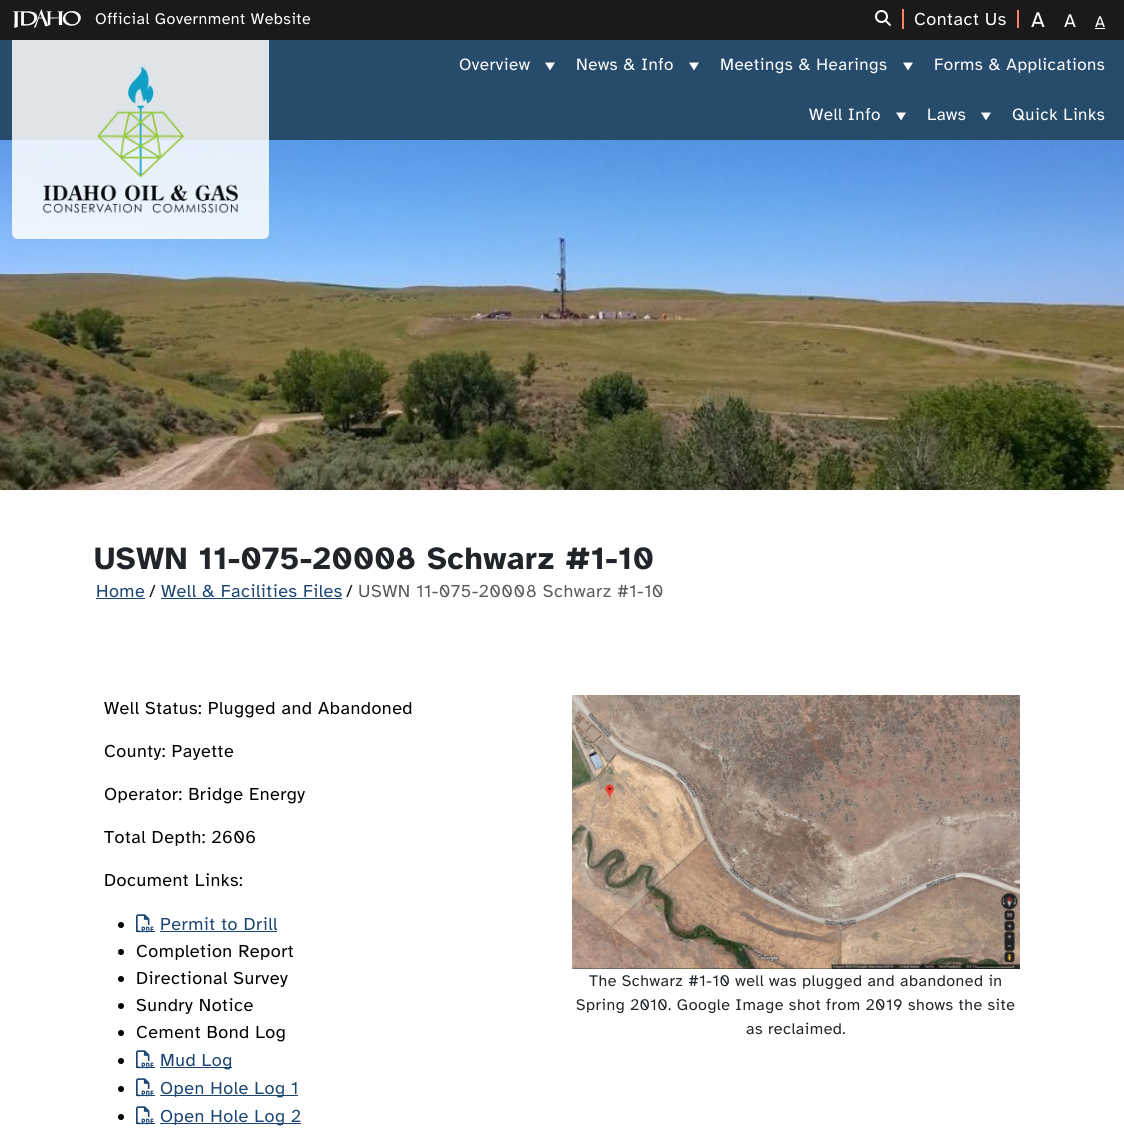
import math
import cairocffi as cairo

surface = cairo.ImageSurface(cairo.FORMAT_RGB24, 1124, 1134)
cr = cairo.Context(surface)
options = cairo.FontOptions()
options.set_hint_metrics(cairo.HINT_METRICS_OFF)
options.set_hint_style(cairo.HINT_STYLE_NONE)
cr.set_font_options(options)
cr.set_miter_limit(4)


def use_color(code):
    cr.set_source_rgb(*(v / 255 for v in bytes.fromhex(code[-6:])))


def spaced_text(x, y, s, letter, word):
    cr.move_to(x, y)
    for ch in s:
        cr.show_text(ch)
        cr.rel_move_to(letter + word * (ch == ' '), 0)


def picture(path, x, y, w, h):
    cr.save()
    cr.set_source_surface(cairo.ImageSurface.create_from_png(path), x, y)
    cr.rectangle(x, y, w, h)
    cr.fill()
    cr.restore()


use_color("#ffffff")
cr.paint()
use_color("#1a1a1a")
cr.rectangle(0, 0, 1124, 40)
cr.fill()
picture("img1.png", 13, 9, 68, 19)
cr.select_font_face("Atkinson Hyperlegible")
cr.set_font_size(16)
use_color("#ffffff")
spaced_text(95, 24, "Official Government Website", 0.5, 0)
use_color("#ff8266")
cr.rectangle(902, 9, 2, 20)
cr.fill()
picture("img2.png", 875, 10, 16, 16)
cr.rectangle(1017, 10, 2, 18)
cr.fill()
cr.set_font_size(18)
use_color("#ffffff")
spaced_text(914, 25, "Contact Us", 0.5, 0)
cr.set_font_size(22)
cr.move_to(1031, 27)
cr.show_text("A")
cr.set_font_size(19)
cr.move_to(1064, 27)
cr.show_text("A")
cr.set_font_size(16)
cr.move_to(1095, 27)
cr.show_text("A")
cr.rectangle(1095, 28, 10, 1)
cr.fill()
use_color("#264b6b")
cr.rectangle(0, 40, 1124, 100)
cr.fill()
picture("img3.png", 0, 140, 1124, 350)
cr.set_source_rgba(1, 1, 1, 0.85)
cr.new_path()
cr.move_to(12, 40)
cr.line_to(269, 40)
cr.line_to(269, 233)
cr.curve_to(269, 236.5, 266.5, 239, 263, 239)
cr.line_to(18, 239)
cr.curve_to(14.5, 239, 12, 236.5, 12, 233)
cr.close_path()
cr.fill()
picture("img4.png", 43, 66, 195, 148)
cr.set_font_size(17)
use_color("#ffffff")
spaced_text(459, 70, "Overview", 0.5, 0)
cr.new_path()
cr.move_to(555, 62.5)
cr.line_to(550, 70.5)
cr.line_to(545, 62.5)
cr.close_path()
cr.fill()
spaced_text(576, 70, "News & Info", 0.5, 0)
cr.new_path()
cr.move_to(699, 62.5)
cr.line_to(694, 70.5)
cr.line_to(689, 62.5)
cr.close_path()
cr.fill()
spaced_text(720, 70, "Meetings & Hearings", 0.5, 0)
cr.new_path()
cr.move_to(913, 62.5)
cr.line_to(908, 70.5)
cr.line_to(903, 62.5)
cr.close_path()
cr.fill()
spaced_text(934, 70, "Forms & Applications", 0.5, 0)
spaced_text(809, 120, "Well Info", 0.5, 0)
cr.new_path()
cr.move_to(906, 112.5)
cr.line_to(901, 120.5)
cr.line_to(896, 112.5)
cr.close_path()
cr.fill()
spaced_text(927, 120, "Laws", 0.5, 0)
cr.new_path()
cr.move_to(991, 112.5)
cr.line_to(986, 120.5)
cr.line_to(981, 112.5)
cr.close_path()
cr.fill()
spaced_text(1012, 120, "Quick Links", 0.5, 0)
cr.select_font_face("Atkinson Hyperlegible", cairo.FONT_SLANT_NORMAL, cairo.FONT_WEIGHT_BOLD)
cr.set_font_size(32)
use_color("#212529")
spaced_text(94, 569, "USWN 11-075-20008 Schwarz #1-10", 0.5, 0)
cr.select_font_face("Atkinson Hyperlegible")
cr.set_font_size(18)
use_color("#1b4573")
spaced_text(96, 597, "Home", 0.5, 0)
cr.rectangle(96, 598, 49, 1)
cr.fill()
use_color("#1a1a1a")
spaced_text(149, 597, "/", 0.5, 0)
use_color("#1b4573")
spaced_text(161, 597, "Well & Facilities Files", 0.5, 0)
cr.rectangle(161, 598, 181, 1)
cr.fill()
use_color("#1a1a1a")
spaced_text(346, 597, "/", 0.5, 0)
use_color("#595c5f")
spaced_text(358, 597, "USWN 11-075-20008 Schwarz #1-10", 0.5, 0)
use_color("#000000")
spaced_text(104, 714, "Well Status: Plugged and Abandoned", 0.5, 0)
spaced_text(104, 757, "County: Payette", 0.5, 0)
spaced_text(104, 800, "Operator: Bridge Energy", 0.5, 0)
spaced_text(104, 843, "Total Depth: 2606", 0.5, 0)
spaced_text(104, 886, "Document Links:", 0.5, 0)
cr.new_path()
cr.arc(121, 925, 3, 0, 2 * math.pi)
cr.fill()
use_color("#1b4573")
cr.rectangle(136, 931, 19, 1)
cr.fill()
picture("img5.png", 136, 914, 18, 19)
spaced_text(160, 930, "Permit to Drill", 0.5, 0)
cr.rectangle(160, 931, 117, 1)
cr.fill()
use_color("#000000")
cr.arc(121, 952, 3, 0, 2 * math.pi)
cr.fill()
spaced_text(136, 957, "Completion Report", 0.5, 0)
cr.new_path()
cr.arc(121, 979, 3, 0, 2 * math.pi)
cr.fill()
spaced_text(136, 984, "Directional Survey", 0.5, 0)
cr.new_path()
cr.arc(121, 1006, 3, 0, 2 * math.pi)
cr.fill()
spaced_text(136, 1011, "Sundry Notice", 0.5, 0)
cr.new_path()
cr.arc(121, 1033, 3, 0, 2 * math.pi)
cr.fill()
spaced_text(136, 1038, "Cement Bond Log", 0.5, 0)
cr.new_path()
cr.arc(121, 1061, 3, 0, 2 * math.pi)
cr.fill()
use_color("#1b4573")
cr.rectangle(136, 1067, 19, 1)
cr.fill()
picture("img5.png", 136, 1050, 18, 19)
cr.rectangle(160, 1067, 72, 1)
cr.fill()
spaced_text(160, 1066, "Mud Log", 0.5, 0)
use_color("#000000")
cr.new_path()
cr.arc(121, 1089, 3, 0, 2 * math.pi)
cr.fill()
use_color("#1b4573")
cr.rectangle(136, 1095, 19, 1)
cr.fill()
picture("img5.png", 136, 1078, 18, 19)
cr.rectangle(160, 1095, 138, 1)
cr.fill()
spaced_text(160, 1094, "Open Hole Log 1", 0.5, 0)
use_color("#000000")
cr.new_path()
cr.arc(121, 1117, 3, 0, 2 * math.pi)
cr.fill()
use_color("#1b4573")
cr.rectangle(136, 1123, 19, 1)
cr.fill()
picture("img5.png", 136, 1106, 18, 19)
cr.rectangle(160, 1123, 141, 1)
cr.fill()
spaced_text(160, 1122, "Open Hole Log 2", 0.5, 0)
picture("img6.png", 572, 695, 448, 274)
cr.set_font_size(16)
use_color("#212529")
spaced_text(589, 986, "The Schwarz #1-10 well was plugged and abandoned in", 0.5, 0)
spaced_text(576, 1010, "Spring 2010. Google Image shot from 2019 shows the site", 0.5, 0)
spaced_text(746, 1034, "as reclaimed.", 0.5, 0)
surface.write_to_png("result.png")
